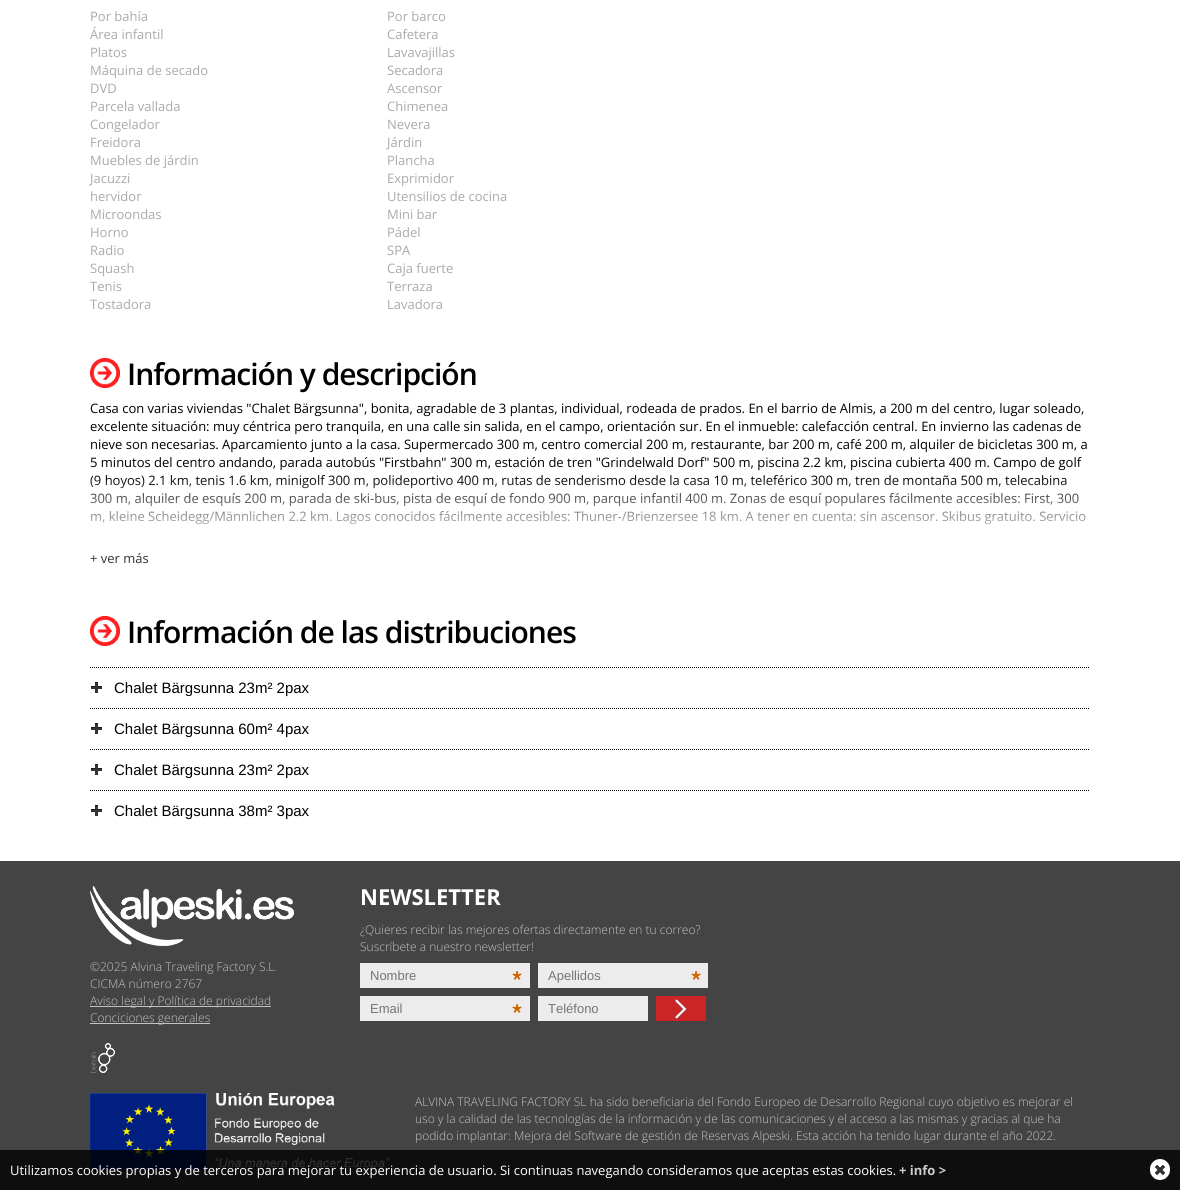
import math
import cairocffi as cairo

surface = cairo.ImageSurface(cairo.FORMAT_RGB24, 1180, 1190)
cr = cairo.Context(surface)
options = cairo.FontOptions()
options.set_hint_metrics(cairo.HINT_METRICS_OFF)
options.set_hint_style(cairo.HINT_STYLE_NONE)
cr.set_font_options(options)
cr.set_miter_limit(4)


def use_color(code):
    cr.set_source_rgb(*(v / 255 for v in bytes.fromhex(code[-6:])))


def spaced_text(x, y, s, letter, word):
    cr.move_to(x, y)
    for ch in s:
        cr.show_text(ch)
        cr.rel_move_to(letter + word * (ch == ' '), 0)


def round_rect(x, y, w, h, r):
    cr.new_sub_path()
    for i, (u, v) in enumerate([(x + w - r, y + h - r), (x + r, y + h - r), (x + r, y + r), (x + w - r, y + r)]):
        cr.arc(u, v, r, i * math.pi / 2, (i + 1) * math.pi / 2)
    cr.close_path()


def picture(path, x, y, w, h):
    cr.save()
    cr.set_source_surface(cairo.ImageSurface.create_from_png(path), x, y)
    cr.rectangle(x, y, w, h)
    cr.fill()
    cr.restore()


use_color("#ffffff")
cr.paint()
cr.select_font_face("Open Sans")
cr.set_font_size(13)
use_color("#aaaaaa")
cr.move_to(90, 21)
cr.show_text("Por bahía")
cr.move_to(387, 21)
cr.show_text("Por barco")
cr.move_to(90, 39)
cr.show_text("Área infantil")
cr.move_to(387, 39)
cr.show_text("Cafetera")
cr.move_to(90, 57)
cr.show_text("Platos")
cr.move_to(387, 57)
cr.show_text("Lavavajillas")
cr.move_to(90, 75)
cr.show_text("Máquina de secado")
cr.move_to(387, 75)
cr.show_text("Secadora")
cr.move_to(90, 93)
cr.show_text("DVD")
cr.move_to(387, 93)
cr.show_text("Ascensor")
cr.move_to(90, 111)
cr.show_text("Parcela vallada")
cr.move_to(387, 111)
cr.show_text("Chimenea")
cr.move_to(90, 129)
cr.show_text("Congelador")
cr.move_to(387, 129)
cr.show_text("Nevera")
cr.move_to(90, 147)
cr.show_text("Freidora")
cr.move_to(387, 147)
cr.show_text("Járdin")
cr.move_to(90, 165)
cr.show_text("Muebles de járdin")
cr.move_to(387, 165)
cr.show_text("Plancha")
cr.move_to(90, 183)
cr.show_text("Jacuzzi")
cr.move_to(387, 183)
cr.show_text("Exprimidor")
cr.move_to(90, 201)
cr.show_text("hervidor")
cr.move_to(387, 201)
cr.show_text("Utensilios de cocina")
cr.move_to(90, 219)
cr.show_text("Microondas")
cr.move_to(387, 219)
cr.show_text("Mini bar")
cr.move_to(90, 237)
cr.show_text("Horno")
cr.move_to(387, 237)
cr.show_text("Pádel")
cr.move_to(90, 255)
cr.show_text("Radio")
cr.move_to(387, 255)
cr.show_text("SPA")
cr.move_to(90, 273)
cr.show_text("Squash")
cr.move_to(387, 273)
cr.show_text("Caja fuerte")
cr.move_to(90, 291)
cr.show_text("Tenis")
cr.move_to(387, 291)
cr.show_text("Terraza")
cr.move_to(90, 309)
cr.show_text("Tostadora")
cr.move_to(387, 309)
cr.show_text("Lavadora")
picture("img1.png", 90, 358, 30, 30)
cr.select_font_face("Open Sans SemiBold")
cr.set_font_size(30)
use_color("#000000")
spaced_text(127, 385, "Información y descripción", -1, 0)
cr.select_font_face("Open Sans")
cr.set_font_size(13)
cr.move_to(90, 413)
cr.show_text("Casa con varias viviendas \"Chalet Bärgsunna\", bonita, agradable de 3 plantas, individual, rodeada de prados. En el barrio de Almis, a 200 m del centro, lugar soleado,")
cr.move_to(90, 431)
cr.show_text("excelente situación: muy céntrica pero tranquila, en una calle sin salida, en el campo, orientación sur. En el inmueble: calefacción central. En invierno las cadenas de")
cr.move_to(90, 449)
cr.show_text("nieve son necesarias. Aparcamiento junto a la casa. Supermercado 300 m, centro comercial 200 m, restaurante, bar 200 m, café 200 m, alquiler de bicicletas 300 m, a")
cr.move_to(90, 467)
cr.show_text("5 minutos del centro andando, parada autobús \"Firstbahn\" 300 m, estación de tren \"Grindelwald Dorf\" 500 m, piscina 2.2 km, piscina cubierta 400 m. Campo de golf")
cr.move_to(90, 485)
cr.show_text("(9 hoyos) 2.1 km, tenis 1.6 km, minigolf 300 m, polideportivo 400 m, rutas de senderismo desde la casa 10 m, teleférico 300 m, tren de montaña 500 m, telecabina")
cr.move_to(90, 503)
cr.show_text("300 m, alquiler de esquís 200 m, parada de ski-bus, pista de esquí de fondo 900 m, parque infantil 400 m. Zonas de esquí populares fácilmente accesibles: First, 300")
cr.move_to(90, 521)
cr.show_text("m, kleine Scheidegg/Männlichen 2.2 km. Lagos conocidos fácilmente accesibles: Thuner-/Brienzersee 18 km. A tener en cuenta: sin ascensor. Skibus gratuito. Servicio")
gradient = cairo.LinearGradient(590, 476, 590, 545)
gradient.add_color_stop_rgba(0, 1, 1, 1, 0)
gradient.add_color_stop_rgba(1, 1, 1, 1, 1)
cr.set_source(gradient)
cr.rectangle(90, 477, 996, 48)
cr.fill()
use_color("#333333")
cr.move_to(90, 563)
cr.show_text("+ ver más")
picture("img1.png", 90, 616, 30, 30)
cr.select_font_face("Open Sans SemiBold")
cr.set_font_size(30)
use_color("#000000")
spaced_text(127, 643, "Información de las distribuciones", -1, 0)
cr.new_path()
cr.move_to(90, 667.5)
cr.line_to(1090, 667.5)
cr.set_line_width(1)
cr.set_dash([1, 1])
cr.stroke()
picture("img2.png", 91, 682, 11, 11)
cr.select_font_face("Liberation Sans")
cr.set_font_size(15)
cr.move_to(114, 693)
cr.show_text("Chalet Bärgsunna 23m² 2pax")
cr.new_path()
cr.move_to(90, 708.5)
cr.line_to(1090, 708.5)
cr.stroke()
picture("img2.png", 91, 723, 11, 11)
cr.move_to(114, 734)
cr.show_text("Chalet Bärgsunna 60m² 4pax")
cr.new_path()
cr.move_to(90, 749.5)
cr.line_to(1090, 749.5)
cr.stroke()
picture("img2.png", 91, 764, 11, 11)
cr.move_to(114, 775)
cr.show_text("Chalet Bärgsunna 23m² 2pax")
cr.new_path()
cr.move_to(90, 790.5)
cr.line_to(1090, 790.5)
cr.stroke()
picture("img2.png", 91, 805, 11, 11)
cr.move_to(114, 816)
cr.show_text("Chalet Bärgsunna 38m² 3pax")
use_color("#444444")
cr.rectangle(0, 861, 1180, 329)
cr.fill()
picture("img3.png", 90, 886, 204, 60)
cr.select_font_face("Open Sans Light")
cr.set_font_size(12)
use_color("#c3c3c3")
cr.move_to(90, 971)
cr.show_text("©2025 Alvina Traveling Factory S.L.")
cr.move_to(90, 988)
cr.show_text("CICMA número 2767")
cr.rectangle(90, 1006, 181, 1)
cr.fill()
cr.move_to(90, 1005)
cr.show_text("Aviso legal y Política de privacidad")
cr.rectangle(90, 1023, 120, 1)
cr.fill()
cr.move_to(90, 1022)
cr.show_text("Conciciones generales")
picture("img4.png", 90, 1043, 25, 30)
cr.select_font_face("Open Sans", cairo.FONT_SLANT_NORMAL, cairo.FONT_WEIGHT_BOLD)
cr.set_font_size(22)
use_color("#ffffff")
cr.move_to(360, 905)
cr.show_text("NEWSLETTER")
cr.select_font_face("Open Sans Light")
cr.set_font_size(12)
use_color("#c3c3c3")
cr.move_to(360, 934)
cr.show_text("¿Quieres recibir las mejores ofertas directamente en tu correo?")
cr.move_to(360, 951)
cr.show_text("Suscríbete a nuestro newsletter!")
use_color("#ececec")
cr.rectangle(360, 963, 170, 25)
cr.fill()
picture("img5.png", 512, 971, 10, 9)
cr.select_font_face("Liberation Sans")
cr.set_font_size(13)
use_color("#757575")
cr.move_to(370, 980)
cr.show_text("Nombre")
use_color("#ececec")
cr.rectangle(538, 963, 170, 25)
cr.fill()
picture("img5.png", 691, 971, 10, 9)
use_color("#757575")
cr.move_to(548, 980)
cr.show_text("Apellidos")
use_color("#ececec")
cr.rectangle(360, 996, 170, 25)
cr.fill()
picture("img5.png", 512, 1004, 10, 9)
use_color("#757575")
cr.move_to(370, 1013)
cr.show_text("Email")
use_color("#ececec")
cr.rectangle(538, 996, 110, 25)
cr.fill()
use_color("#757575")
cr.move_to(548, 1013)
cr.show_text("Teléfono")
use_color("#cb2526")
cr.rectangle(656, 996, 50, 25)
cr.fill()
picture("img6.png", 675, 999, 12, 20)
picture("img7.png", 90, 1093, 300, 77)
cr.select_font_face("Open Sans Light")
cr.set_font_size(12)
use_color("#c3c3c3")
cr.move_to(415, 1106)
cr.show_text("ALVINA TRAVELING FACTORY SL ha sido beneficiaria del Fondo Europeo de Desarrollo Regional cuyo objetivo es mejorar el")
cr.move_to(415, 1123)
cr.show_text("uso y la calidad de las tecnologías de la información y de las comunicaciones y el acceso a las mismas y gracias al que ha")
cr.move_to(415, 1140)
cr.show_text("podido implantar: Mejora del Software de gestión de Reservas Alpeski. Esta acción ha tenido lugar durante el año 2022.")
cr.set_source_rgba(0, 0, 0, 0.8)
cr.rectangle(0, 1150, 1180, 40)
cr.fill()
cr.select_font_face("Open Sans")
cr.set_font_size(13)
use_color("#ffffff")
cr.move_to(10, 1175)
cr.show_text("Utilizamos cookies propias y de terceros para mejorar tu experiencia de usuario. Si continuas navegando consideramos que aceptas estas cookies.")
cr.select_font_face("Open Sans", cairo.FONT_SLANT_NORMAL, cairo.FONT_WEIGHT_BOLD)
use_color("#cccccc")
cr.move_to(899, 1175)
cr.show_text("+ info >")
use_color("#ffffff")
round_rect(1150, 1159, 20, 21, 10)
cr.fill()
picture("img8.png", 1155, 1165, 10, 10)
surface.write_to_png("result.png")
